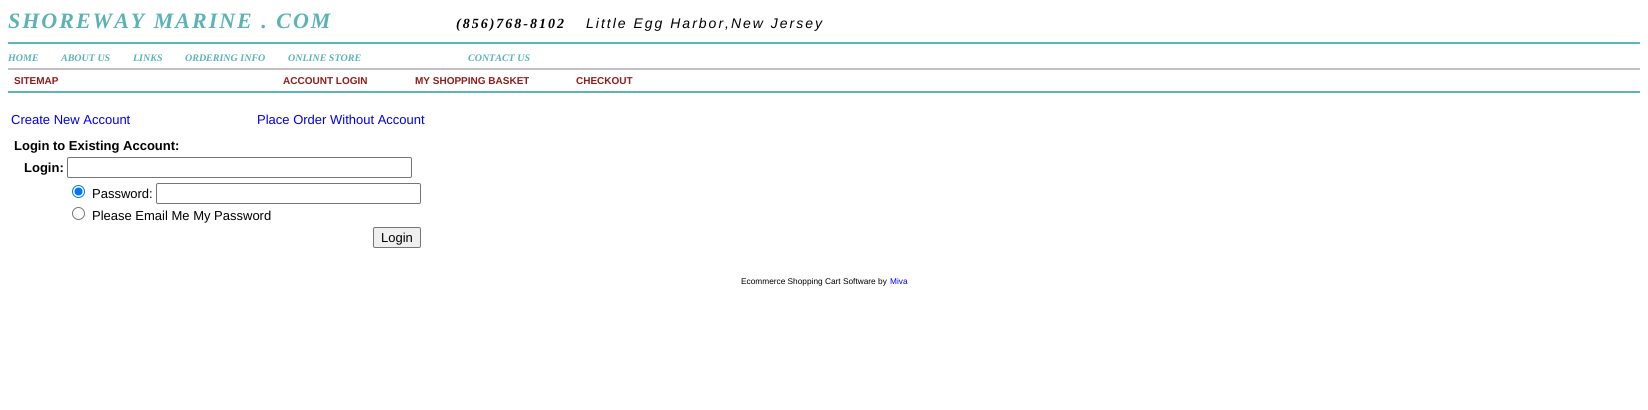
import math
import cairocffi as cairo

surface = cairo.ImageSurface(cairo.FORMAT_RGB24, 1648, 410)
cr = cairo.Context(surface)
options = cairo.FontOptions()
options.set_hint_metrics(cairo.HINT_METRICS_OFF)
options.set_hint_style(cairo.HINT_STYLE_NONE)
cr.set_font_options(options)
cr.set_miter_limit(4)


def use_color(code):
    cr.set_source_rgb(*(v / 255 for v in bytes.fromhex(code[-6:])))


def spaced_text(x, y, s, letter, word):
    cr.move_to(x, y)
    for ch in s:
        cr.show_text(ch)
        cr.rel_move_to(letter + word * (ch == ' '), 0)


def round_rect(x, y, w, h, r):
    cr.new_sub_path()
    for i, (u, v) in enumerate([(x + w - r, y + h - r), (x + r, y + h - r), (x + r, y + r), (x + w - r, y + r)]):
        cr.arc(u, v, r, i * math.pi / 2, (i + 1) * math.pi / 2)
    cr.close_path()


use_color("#ffffff")
cr.paint()
cr.select_font_face("Liberation Serif", cairo.FONT_SLANT_ITALIC, cairo.FONT_WEIGHT_BOLD)
cr.set_font_size(22)
use_color("#5cb3b6")
spaced_text(8, 28, "SHOREWAY MARINE . COM", 2, 0)
cr.set_font_size(14)
use_color("#000000")
spaced_text(456, 28, "(856)768-8102", 2, 0)
cr.select_font_face("Liberation Sans", cairo.FONT_SLANT_ITALIC)
spaced_text(586, 28, "Little Egg Harbor,New Jersey", 2, 0)
use_color("#5cb6b5")
cr.rectangle(8, 42, 1632, 2)
cr.fill()
cr.select_font_face("Liberation Serif", cairo.FONT_SLANT_ITALIC, cairo.FONT_WEIGHT_BOLD)
cr.set_font_size(10)
use_color("#5cb3b6")
cr.move_to(8, 61)
cr.show_text("HOME")
cr.move_to(61, 61)
cr.show_text("ABOUT US")
cr.move_to(133, 61)
cr.show_text("LINKS")
cr.move_to(185, 61)
cr.show_text("ORDERING INFO")
cr.move_to(288, 61)
cr.show_text("ONLINE STORE")
cr.move_to(468, 61)
cr.show_text("CONTACT US")
use_color("#c0c0c0")
cr.rectangle(8, 68, 1632, 2)
cr.fill()
cr.select_font_face("Liberation Sans", cairo.FONT_SLANT_NORMAL, cairo.FONT_WEIGHT_BOLD)
use_color("#931b1b")
cr.move_to(283, 84)
cr.show_text("ACCOUNT LOGIN")
cr.move_to(415, 84)
cr.show_text("MY SHOPPING BASKET")
cr.move_to(576, 84)
cr.show_text("CHECKOUT")
use_color("#5cb6b5")
cr.rectangle(8, 91, 1632, 2)
cr.fill()
cr.select_font_face("Liberation Sans")
cr.set_font_size(13)
use_color("#0000ee")
cr.move_to(11, 124)
cr.show_text("Create New Account")
cr.move_to(257, 124)
cr.show_text("Place Order Without Account")
cr.select_font_face("Liberation Sans", cairo.FONT_SLANT_NORMAL, cairo.FONT_WEIGHT_BOLD)
use_color("#000000")
cr.move_to(14, 150)
cr.show_text("Login to Existing Account:")
cr.move_to(24, 172)
cr.show_text("Login:")
round_rect(67.5, 157.5, 344, 20, 1.5)
use_color("#767676")
cr.set_line_width(1)
cr.stroke()
cr.arc(78.5, 191.5, 6, 0, 2 * math.pi)
use_color("#0075ff")
cr.stroke()
cr.arc(78.5, 191.5, 4, 0, 2 * math.pi)
cr.fill()
cr.select_font_face("Liberation Sans")
use_color("#000000")
cr.move_to(92, 198)
cr.show_text("Password:")
round_rect(156.5, 183.5, 264, 20, 1.5)
use_color("#767676")
cr.stroke()
cr.arc(78.5, 213.5, 6, 0, 2 * math.pi)
cr.stroke()
use_color("#000000")
cr.move_to(92, 220)
cr.show_text("Please Email Me My Password")
use_color("#efefef")
round_rect(373.5, 227.5, 47, 20, 1.5)
cr.fill_preserve()
use_color("#767676")
cr.stroke()
use_color("#000000")
cr.move_to(381, 242)
cr.show_text("Login")
cr.set_font_size(8.3)
cr.move_to(741, 284)
cr.show_text("Ecommerce Shopping Cart Software by")
use_color("#0000ee")
cr.move_to(890, 284)
cr.show_text("Miva")
cr.select_font_face("Liberation Sans", cairo.FONT_SLANT_NORMAL, cairo.FONT_WEIGHT_BOLD)
cr.set_font_size(10)
use_color("#931b1b")
cr.move_to(14, 84)
cr.show_text("SITEMAP")
surface.write_to_png("result.png")
